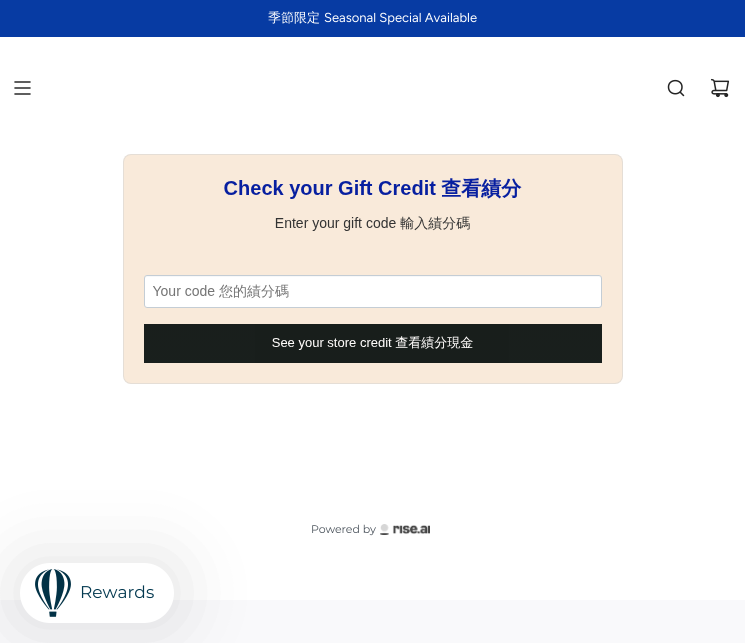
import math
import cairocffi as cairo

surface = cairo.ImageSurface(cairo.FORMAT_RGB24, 745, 643)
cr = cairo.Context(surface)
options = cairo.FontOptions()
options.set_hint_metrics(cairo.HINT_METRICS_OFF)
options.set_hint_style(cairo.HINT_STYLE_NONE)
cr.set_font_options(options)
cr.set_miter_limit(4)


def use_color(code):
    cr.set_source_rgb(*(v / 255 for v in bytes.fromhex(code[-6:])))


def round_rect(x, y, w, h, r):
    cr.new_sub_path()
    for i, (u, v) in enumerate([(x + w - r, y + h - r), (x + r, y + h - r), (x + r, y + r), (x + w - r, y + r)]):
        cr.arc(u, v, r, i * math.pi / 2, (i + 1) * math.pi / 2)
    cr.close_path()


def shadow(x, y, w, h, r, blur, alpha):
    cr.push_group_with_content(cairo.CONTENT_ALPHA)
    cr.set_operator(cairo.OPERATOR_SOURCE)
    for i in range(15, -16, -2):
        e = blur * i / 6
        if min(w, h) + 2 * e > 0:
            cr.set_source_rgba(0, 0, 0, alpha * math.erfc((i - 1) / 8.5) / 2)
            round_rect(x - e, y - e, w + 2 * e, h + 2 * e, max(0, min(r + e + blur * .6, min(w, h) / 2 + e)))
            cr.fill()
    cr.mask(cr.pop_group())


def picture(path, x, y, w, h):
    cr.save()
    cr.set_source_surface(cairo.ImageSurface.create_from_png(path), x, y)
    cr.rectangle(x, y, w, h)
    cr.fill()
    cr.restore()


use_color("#ffffff")
cr.paint()
use_color("#073ba3")
cr.rectangle(0, 0, 745, 37)
cr.fill()
cr.select_font_face("WenQuanYi Zen Hei Medium")
cr.set_font_size(13)
use_color("#ffffff")
cr.move_to(268, 22)
cr.show_text("季節限定")
cr.select_font_face("Figtree")
cr.move_to(324, 22)
cr.show_text("Seasonal Special Available")
cr.new_path()
cr.move_to(15, 82)
cr.line_to(30, 82)
cr.move_to(15, 88)
cr.line_to(30, 88)
cr.move_to(15, 94)
cr.line_to(30, 94)
use_color("#242424")
cr.set_line_width(1.5)
cr.set_line_cap(cairo.LINE_CAP_ROUND)
cr.set_line_join(cairo.LINE_JOIN_ROUND)
cr.stroke()
cr.new_path()
cr.move_to(680, 92)
cr.line_to(683.5, 95.5)
cr.move_to(668.5, 87)
cr.curve_to(668.5, 96, 682, 96, 682, 87)
cr.curve_to(682, 78.5, 668.5, 78.5, 668.5, 87)
cr.close_path()
cr.stroke()
picture("img1.png", 710, 78, 20, 20)
picture("img2.png", 123, 154, 500, 382)
use_color("#f9f9fb")
cr.rectangle(0, 600, 745, 43)
cr.fill()
use_color("#000000")
shadow(20, 563, 154, 60, 30, 40, 0.12)
use_color("#ffffff")
round_rect(20, 563, 154, 60, 30)
cr.fill()
picture("img3.png", 35, 569, 36, 48)
cr.select_font_face("Montserrat")
cr.set_font_size(17)
use_color("#033950")
cr.move_to(80, 598)
cr.show_text("Rewards")
surface.write_to_png("result.png")
